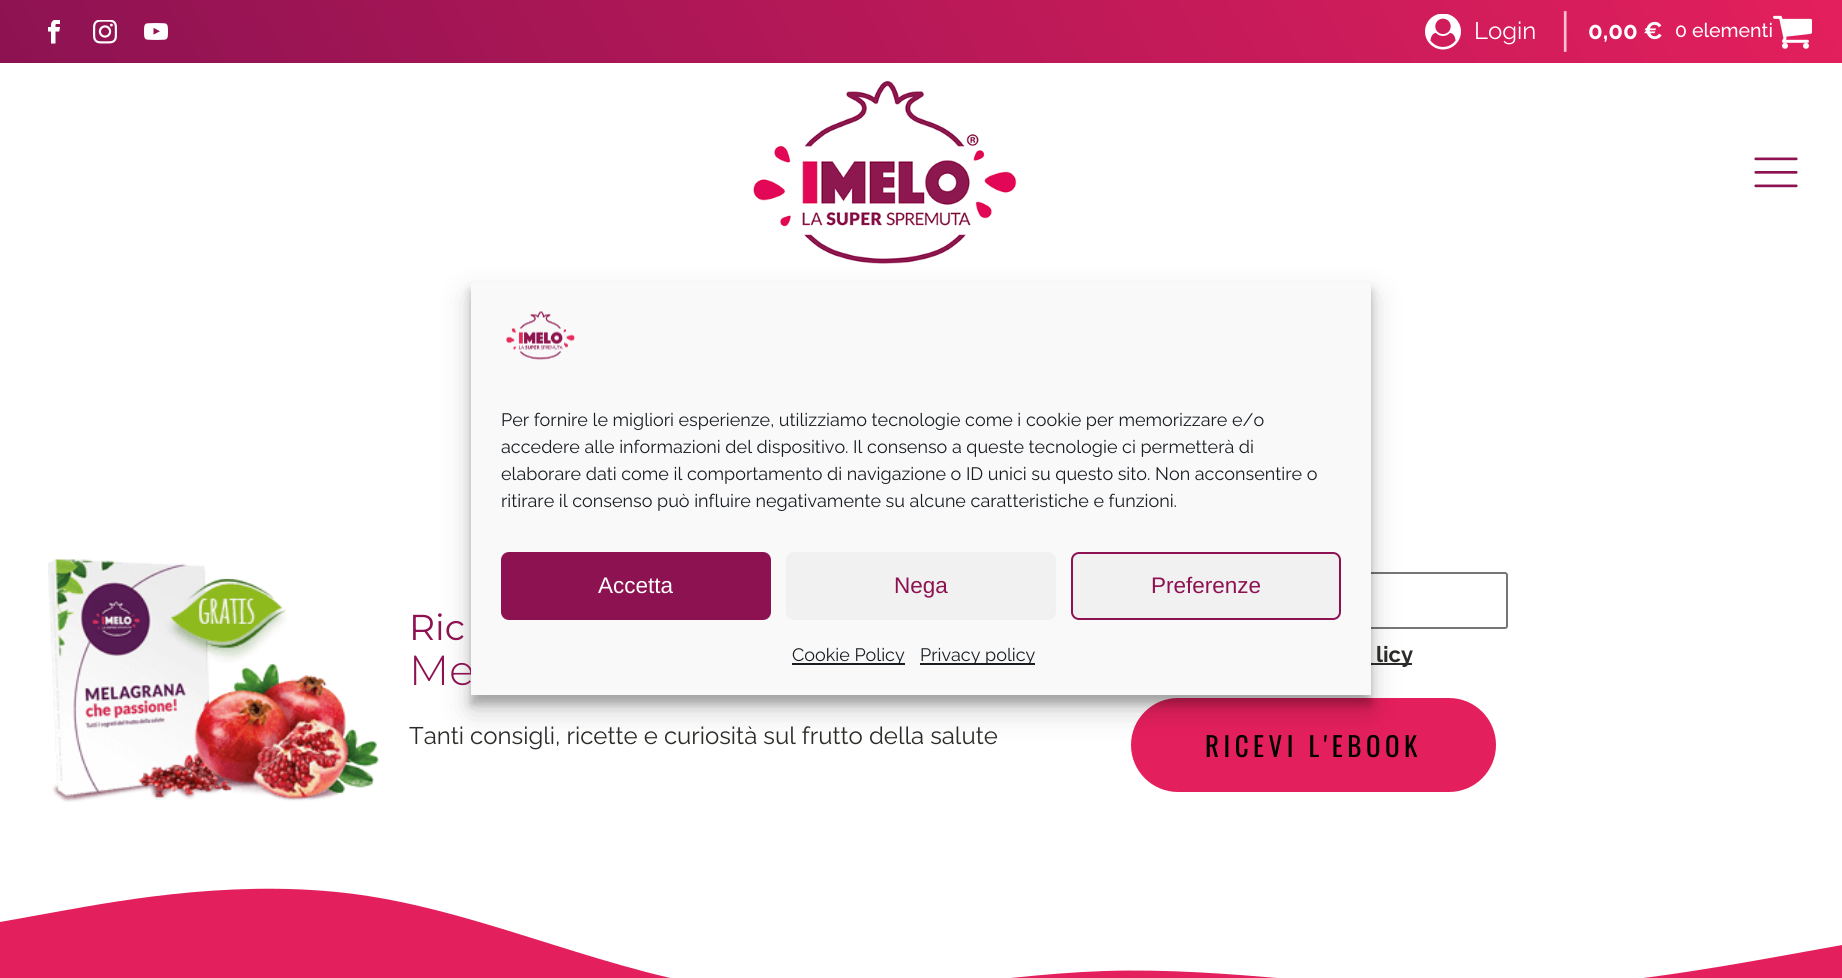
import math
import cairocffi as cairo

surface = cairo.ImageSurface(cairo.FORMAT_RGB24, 1842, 978)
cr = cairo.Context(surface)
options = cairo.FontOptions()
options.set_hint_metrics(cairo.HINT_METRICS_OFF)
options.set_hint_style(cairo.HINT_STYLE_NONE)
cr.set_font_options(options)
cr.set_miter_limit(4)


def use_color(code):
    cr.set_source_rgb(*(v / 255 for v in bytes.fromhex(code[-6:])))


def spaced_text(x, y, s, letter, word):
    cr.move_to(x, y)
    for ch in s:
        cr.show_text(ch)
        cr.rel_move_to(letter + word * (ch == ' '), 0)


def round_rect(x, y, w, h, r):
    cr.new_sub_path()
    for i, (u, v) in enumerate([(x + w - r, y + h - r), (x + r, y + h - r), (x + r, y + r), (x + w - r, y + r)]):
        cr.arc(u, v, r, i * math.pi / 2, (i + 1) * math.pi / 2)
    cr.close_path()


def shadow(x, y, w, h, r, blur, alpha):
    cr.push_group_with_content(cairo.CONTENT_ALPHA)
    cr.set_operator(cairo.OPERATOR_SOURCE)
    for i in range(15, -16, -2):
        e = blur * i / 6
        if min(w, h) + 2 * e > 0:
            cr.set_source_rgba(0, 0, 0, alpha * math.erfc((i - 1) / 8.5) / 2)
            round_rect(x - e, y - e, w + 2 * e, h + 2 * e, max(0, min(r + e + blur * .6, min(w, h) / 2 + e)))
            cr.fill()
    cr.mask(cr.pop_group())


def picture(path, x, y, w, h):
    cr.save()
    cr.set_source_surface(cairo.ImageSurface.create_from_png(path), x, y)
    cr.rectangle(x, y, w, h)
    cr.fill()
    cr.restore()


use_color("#ffffff")
cr.paint()
gradient = cairo.LinearGradient(1625, -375, 217, 438)
gradient.add_color_stop_rgba(0, 0.894, 0.122, 0.365, 1)
gradient.add_color_stop_rgba(1, 0.553, 0.071, 0.322, 1)
cr.set_source(gradient)
cr.rectangle(0, 0, 1842, 63)
cr.fill()
picture("img1.png", 48, 20, 12, 24)
picture("img2.png", 93, 20, 24, 24)
picture("img3.png", 144, 23, 24, 17)
picture("img4.png", 1425, 14, 36, 36)
cr.select_font_face("Raleway Thin")
cr.set_font_size(24)
use_color("#ffffff")
cr.move_to(1474, 39)
cr.show_text("Login")
cr.set_font_size(45)
use_color("#f4c0d1")
cr.move_to(1560, 46)
cr.show_text("|")
cr.select_font_face("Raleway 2 Thin")
cr.set_font_size(24)
use_color("#ffffff")
cr.move_to(1588, 39)
cr.show_text("0,00 €")
cr.select_font_face("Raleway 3 Thin")
cr.set_font_size(19.5)
cr.move_to(1675, 37)
cr.show_text("0 elementi")
picture("img5.png", 1773, 15, 39, 34)
picture("img6.png", 753, 81, 264, 183)
picture("img7.png", 1754, 157, 44, 31)
round_rect(1132, 573, 375, 55, 2)
use_color("#767676")
cr.stroke()
use_color("#2b2c28")
cr.rectangle(1371, 663, 41, 2)
cr.fill()
use_color("#e41f5d")
round_rect(1132, 699, 363, 92, 46)
cr.fill_preserve()
cr.stroke()
use_color("#000000")
shadow(471, 291, 900, 413, 0, 4.5, 0.23)
shadow(471, 297, 900, 413, 0, 15, 0.19)
cr.select_font_face("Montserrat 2 Thin")
cr.set_font_size(42)
use_color("#8d1252")
cr.move_to(409, 685)
cr.show_text("Me")
use_color("#f9f9f9")
cr.rectangle(471, 282, 900, 413)
cr.fill()
picture("img8.png", 506, 311, 69, 49)
cr.select_font_face("Raleway Thin")
cr.set_font_size(18)
use_color("#191e23")
cr.move_to(501, 426)
cr.show_text("Per fornire le migliori esperienze, utilizziamo tecnologie come i cookie per memorizzare e/o")
cr.move_to(501, 453)
cr.show_text("accedere alle informazioni del dispositivo. Il consenso a queste tecnologie ci permetterà di")
cr.move_to(501, 480)
cr.show_text("elaborare dati come il comportamento di navigazione o ID unici su questo sito. Non acconsentire o")
cr.move_to(501, 507)
cr.show_text("ritirare il consenso può influire negativamente su alcune caratteristiche e funzioni.")
use_color("#8d1252")
round_rect(502, 553, 268, 66, 7)
cr.fill_preserve()
cr.stroke()
cr.select_font_face("Liberation Sans")
cr.set_font_size(22.5)
use_color("#ffffff")
cr.move_to(598, 593)
cr.show_text("Accetta")
use_color("#f1f1f1")
round_rect(786, 552, 270, 68, 8)
cr.fill()
use_color("#8d1252")
cr.move_to(894, 593)
cr.show_text("Nega")
use_color("#f1f1f1")
round_rect(1072, 553, 268, 66, 7)
cr.fill_preserve()
use_color("#8d1252")
cr.stroke()
cr.move_to(1151, 593)
cr.show_text("Preferenze")
use_color("#191e23")
cr.rectangle(792, 663, 113, 2)
cr.fill()
cr.select_font_face("Raleway Thin")
cr.set_font_size(18)
cr.move_to(792, 661)
cr.show_text("Cookie Policy")
cr.rectangle(920, 663, 115, 2)
cr.fill()
cr.move_to(920, 661)
cr.show_text("Privacy policy")
picture("img9.png", 48, 559, 332, 243)
cr.select_font_face("Montserrat Thin")
cr.set_font_size(36)
use_color("#8d1252")
cr.move_to(409, 640)
cr.show_text("Ric")
cr.select_font_face("Raleway Thin")
cr.set_font_size(24)
use_color("#2b2c28")
cr.move_to(409, 744)
cr.show_text("Tanti consigli, ricette e curiosità sul frutto della salute")
cr.select_font_face("Raleway 2 Thin")
cr.set_font_size(22)
cr.move_to(1376, 662)
cr.show_text("licy")
cr.select_font_face("Oswald")
cr.set_font_size(27)
use_color("#000000")
spaced_text(1205, 757, "RICEVI L'EBOOK", 4.5, 0)
use_color("#e41f5d")
cr.rectangle(0, 888, 1842, 90)
cr.fill()
cr.save()
cr.rectangle(0, 833, 1842, 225)
cr.clip()
use_color("#ffffff")
cr.new_path()
cr.move_to(1842, 945)
cr.line_to(1781, 956)
cr.curve_to(1719, 967, 1596, 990, 1474, 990)
cr.curve_to(1351, 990, 1228, 967, 1105, 971)
cr.curve_to(982, 975, 860, 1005, 737, 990)
cr.curve_to(614, 975, 491, 915, 368, 896)
cr.curve_to(246, 877, 123, 900, 61, 911)
cr.line_to(0, 922)
cr.line_to(0, 832)
cr.line_to(1842, 832)
cr.close_path()
cr.fill()
cr.restore()
surface.write_to_png("result.png")
